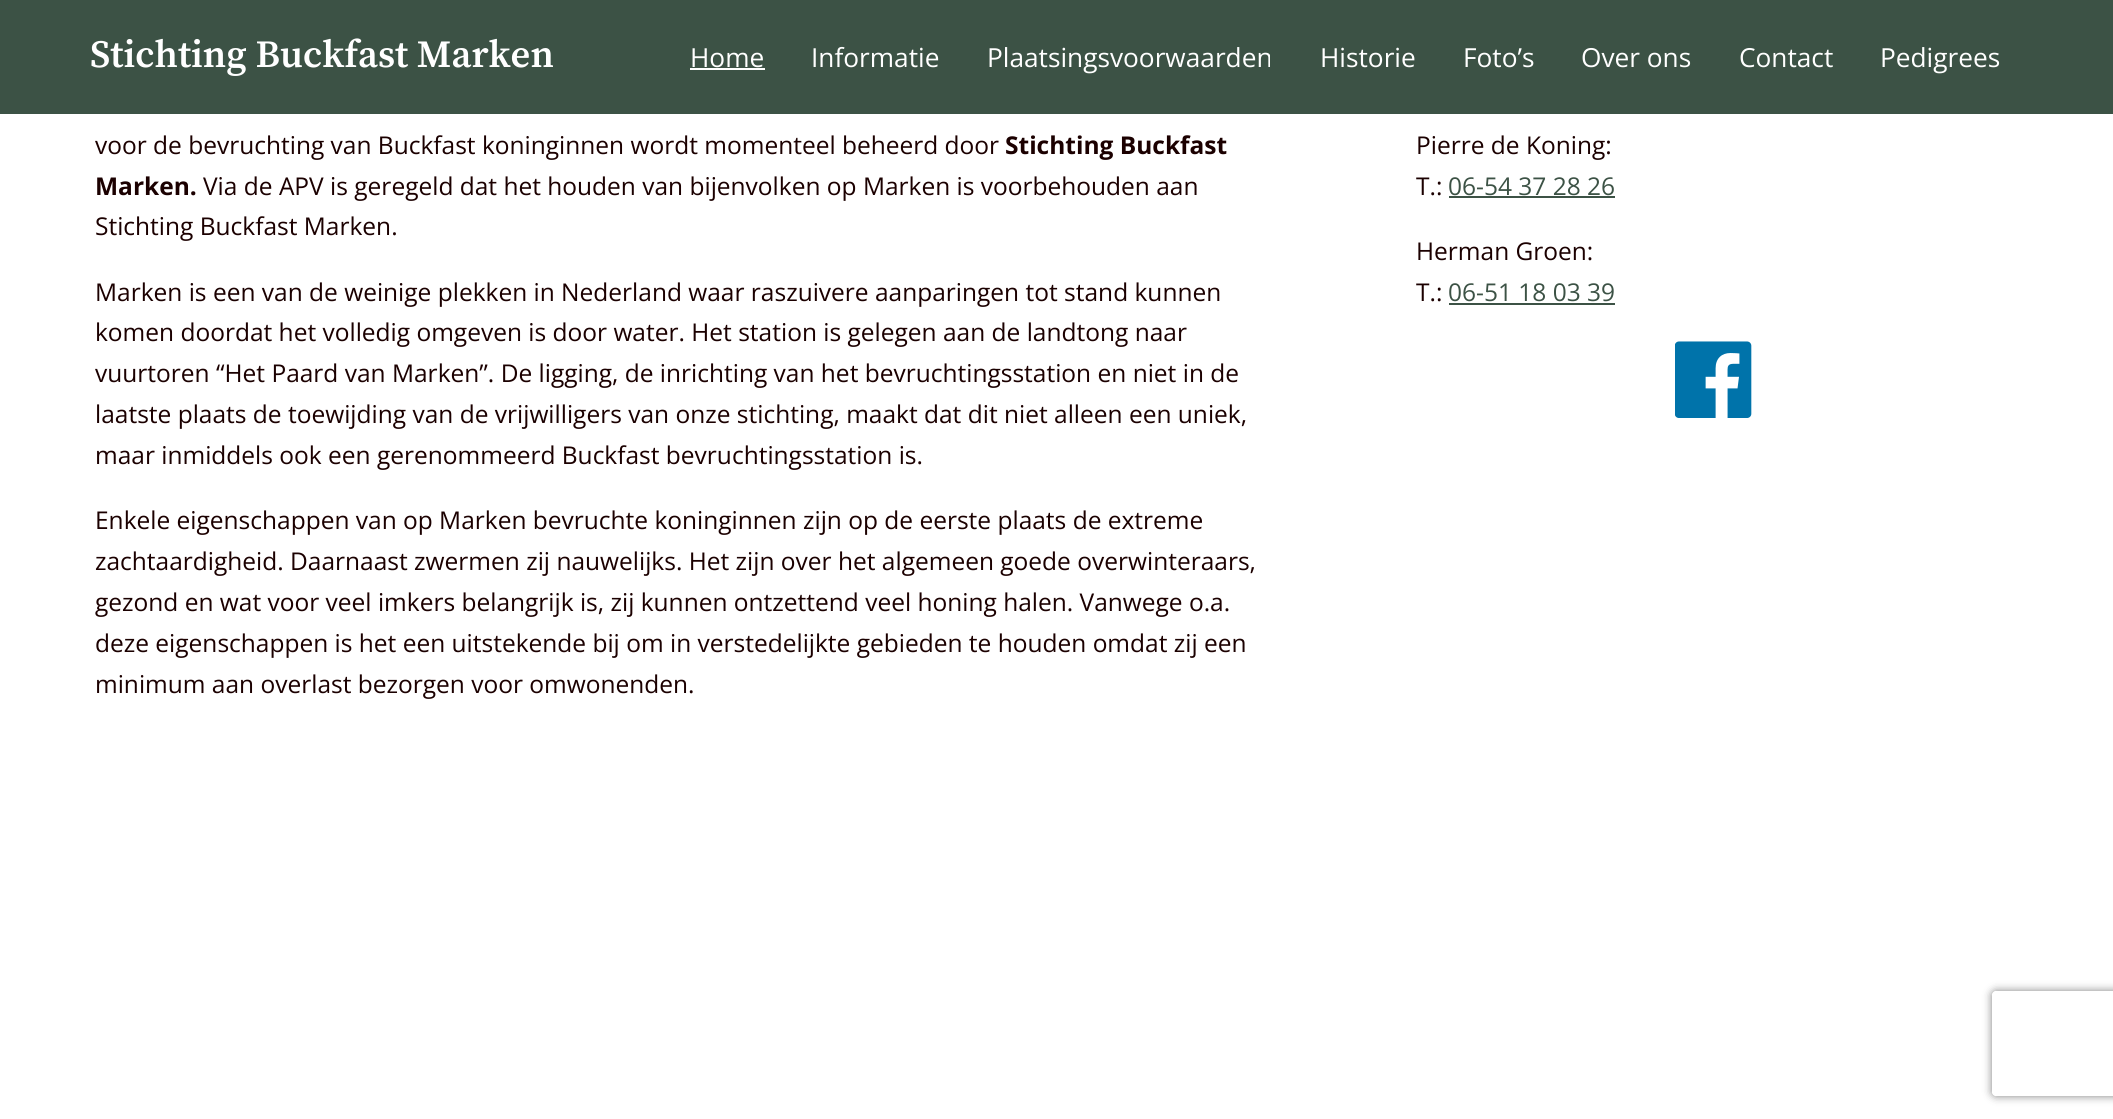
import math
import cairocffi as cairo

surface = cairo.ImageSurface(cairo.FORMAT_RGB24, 2113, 1119)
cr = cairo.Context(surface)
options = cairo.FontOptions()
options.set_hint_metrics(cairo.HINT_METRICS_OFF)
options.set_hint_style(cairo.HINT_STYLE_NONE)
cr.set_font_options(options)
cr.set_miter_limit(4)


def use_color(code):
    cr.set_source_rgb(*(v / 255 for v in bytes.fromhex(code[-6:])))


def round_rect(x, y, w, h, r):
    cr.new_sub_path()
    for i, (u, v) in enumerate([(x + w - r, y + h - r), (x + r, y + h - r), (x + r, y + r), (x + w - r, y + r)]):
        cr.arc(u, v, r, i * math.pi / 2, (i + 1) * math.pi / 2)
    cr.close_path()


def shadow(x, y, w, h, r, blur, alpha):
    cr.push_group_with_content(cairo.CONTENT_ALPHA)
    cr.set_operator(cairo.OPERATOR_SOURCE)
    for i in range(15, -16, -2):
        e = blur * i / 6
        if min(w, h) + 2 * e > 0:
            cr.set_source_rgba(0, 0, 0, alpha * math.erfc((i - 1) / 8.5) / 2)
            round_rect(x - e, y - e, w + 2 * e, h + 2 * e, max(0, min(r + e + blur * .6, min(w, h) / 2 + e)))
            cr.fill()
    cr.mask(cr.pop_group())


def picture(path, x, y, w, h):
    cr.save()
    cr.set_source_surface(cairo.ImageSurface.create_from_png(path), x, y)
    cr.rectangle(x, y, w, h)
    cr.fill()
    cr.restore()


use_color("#ffffff")
cr.paint()
use_color("#3c5245")
cr.rectangle(0, 0, 2113, 114)
cr.fill()
cr.select_font_face("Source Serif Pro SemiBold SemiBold")
cr.set_font_size(38.5)
use_color("#ffffff")
cr.move_to(90, 67)
cr.show_text("Stichting Buckfast Marken")
cr.select_font_face("Open Sans")
cr.set_font_size(26.25)
cr.move_to(690, 67)
cr.show_text("Home")
cr.rectangle(690, 68, 75, 2)
cr.fill()
cr.move_to(811, 67)
cr.show_text("Informatie")
cr.move_to(987, 67)
cr.show_text("Plaatsingsvoorwaarden")
cr.move_to(1320, 67)
cr.show_text("Historie")
cr.move_to(1463, 67)
cr.show_text("Foto’s")
cr.move_to(1581, 67)
cr.show_text("Over ons")
cr.move_to(1739, 67)
cr.show_text("Contact")
cr.move_to(1880, 67)
cr.show_text("Pedigrees")
cr.set_font_size(24.5)
use_color("#1b0000")
cr.move_to(95, 154)
cr.show_text("voor de bevruchting van Buckfast koninginnen wordt momenteel beheerd door")
cr.select_font_face("Open Sans", cairo.FONT_SLANT_NORMAL, cairo.FONT_WEIGHT_BOLD)
cr.move_to(1005, 154)
cr.show_text("Stichting Buckfast")
cr.move_to(95, 195)
cr.show_text("Marken.")
cr.select_font_face("Open Sans")
cr.move_to(203, 195)
cr.show_text("Via de APV is geregeld dat het houden van bijenvolken op Marken is voorbehouden aan")
cr.move_to(95, 235)
cr.show_text("Stichting Buckfast Marken.")
cr.move_to(95, 301)
cr.show_text("Marken is een van de weinige plekken in Nederland waar raszuivere aanparingen tot stand kunnen")
cr.move_to(95, 341)
cr.show_text("komen doordat het volledig omgeven is door water. Het station is gelegen aan de landtong naar")
cr.move_to(95, 382)
cr.show_text("vuurtoren “Het Paard van Marken”. De ligging, de inrichting van het bevruchtingsstation en niet in de")
cr.move_to(95, 423)
cr.show_text("laatste plaats de toewijding van de vrijwilligers van onze stichting, maakt dat dit niet alleen een uniek,")
cr.move_to(95, 464)
cr.show_text("maar inmiddels ook een gerenommeerd Buckfast bevruchtingsstation is.")
cr.move_to(95, 529)
cr.show_text("Enkele eigenschappen van op Marken bevruchte koninginnen zijn op de eerste plaats de extreme")
cr.move_to(95, 570)
cr.show_text("zachtaardigheid. Daarnaast zwermen zij nauwelijks. Het zijn over het algemeen goede overwinteraars,")
cr.move_to(95, 611)
cr.show_text("gezond en wat voor veel imkers belangrijk is, zij kunnen ontzettend veel honing halen. Vanwege o.a.")
cr.move_to(95, 652)
cr.show_text("deze eigenschappen is het een uitstekende bij om in verstedelijkte gebieden te houden omdat zij een")
cr.move_to(95, 693)
cr.show_text("minimum aan overlast bezorgen voor omwonenden.")
cr.move_to(1416, 154)
cr.show_text("Pierre de Koning:")
cr.move_to(1416, 195)
cr.show_text("T.:")
use_color("#3c5245")
cr.move_to(1448, 195)
cr.show_text("06-54 37 28 26")
cr.rectangle(1449, 196, 166, 2)
cr.fill()
use_color("#1b0000")
cr.move_to(1416, 260)
cr.show_text("Herman Groen:")
cr.move_to(1416, 301)
cr.show_text("T.:")
use_color("#3c5245")
cr.move_to(1448, 301)
cr.show_text("06-51 18 03 39")
cr.rectangle(1449, 303, 166, 2)
cr.fill()
picture("img1.png", 1675, 341, 77, 77)
cr.save()
cr.set_fill_rule(cairo.FILL_RULE_EVEN_ODD)
cr.new_path()
cr.move_to(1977, 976)
cr.line_to(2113, 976)
cr.line_to(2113, 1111)
cr.line_to(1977, 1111)
cr.close_path()
cr.move_to(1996, 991)
cr.line_to(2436, 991)
cr.curve_to(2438, 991, 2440, 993, 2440, 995)
cr.line_to(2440, 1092)
cr.curve_to(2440, 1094, 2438, 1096, 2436, 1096)
cr.line_to(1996, 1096)
cr.curve_to(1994, 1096, 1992, 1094, 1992, 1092)
cr.line_to(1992, 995)
cr.curve_to(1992, 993, 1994, 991, 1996, 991)
cr.close_path()
cr.clip()
use_color("#808080")
shadow(1992, 991, 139, 105, 4, 4.5, 1)
cr.restore()
surface.write_to_png("result.png")
